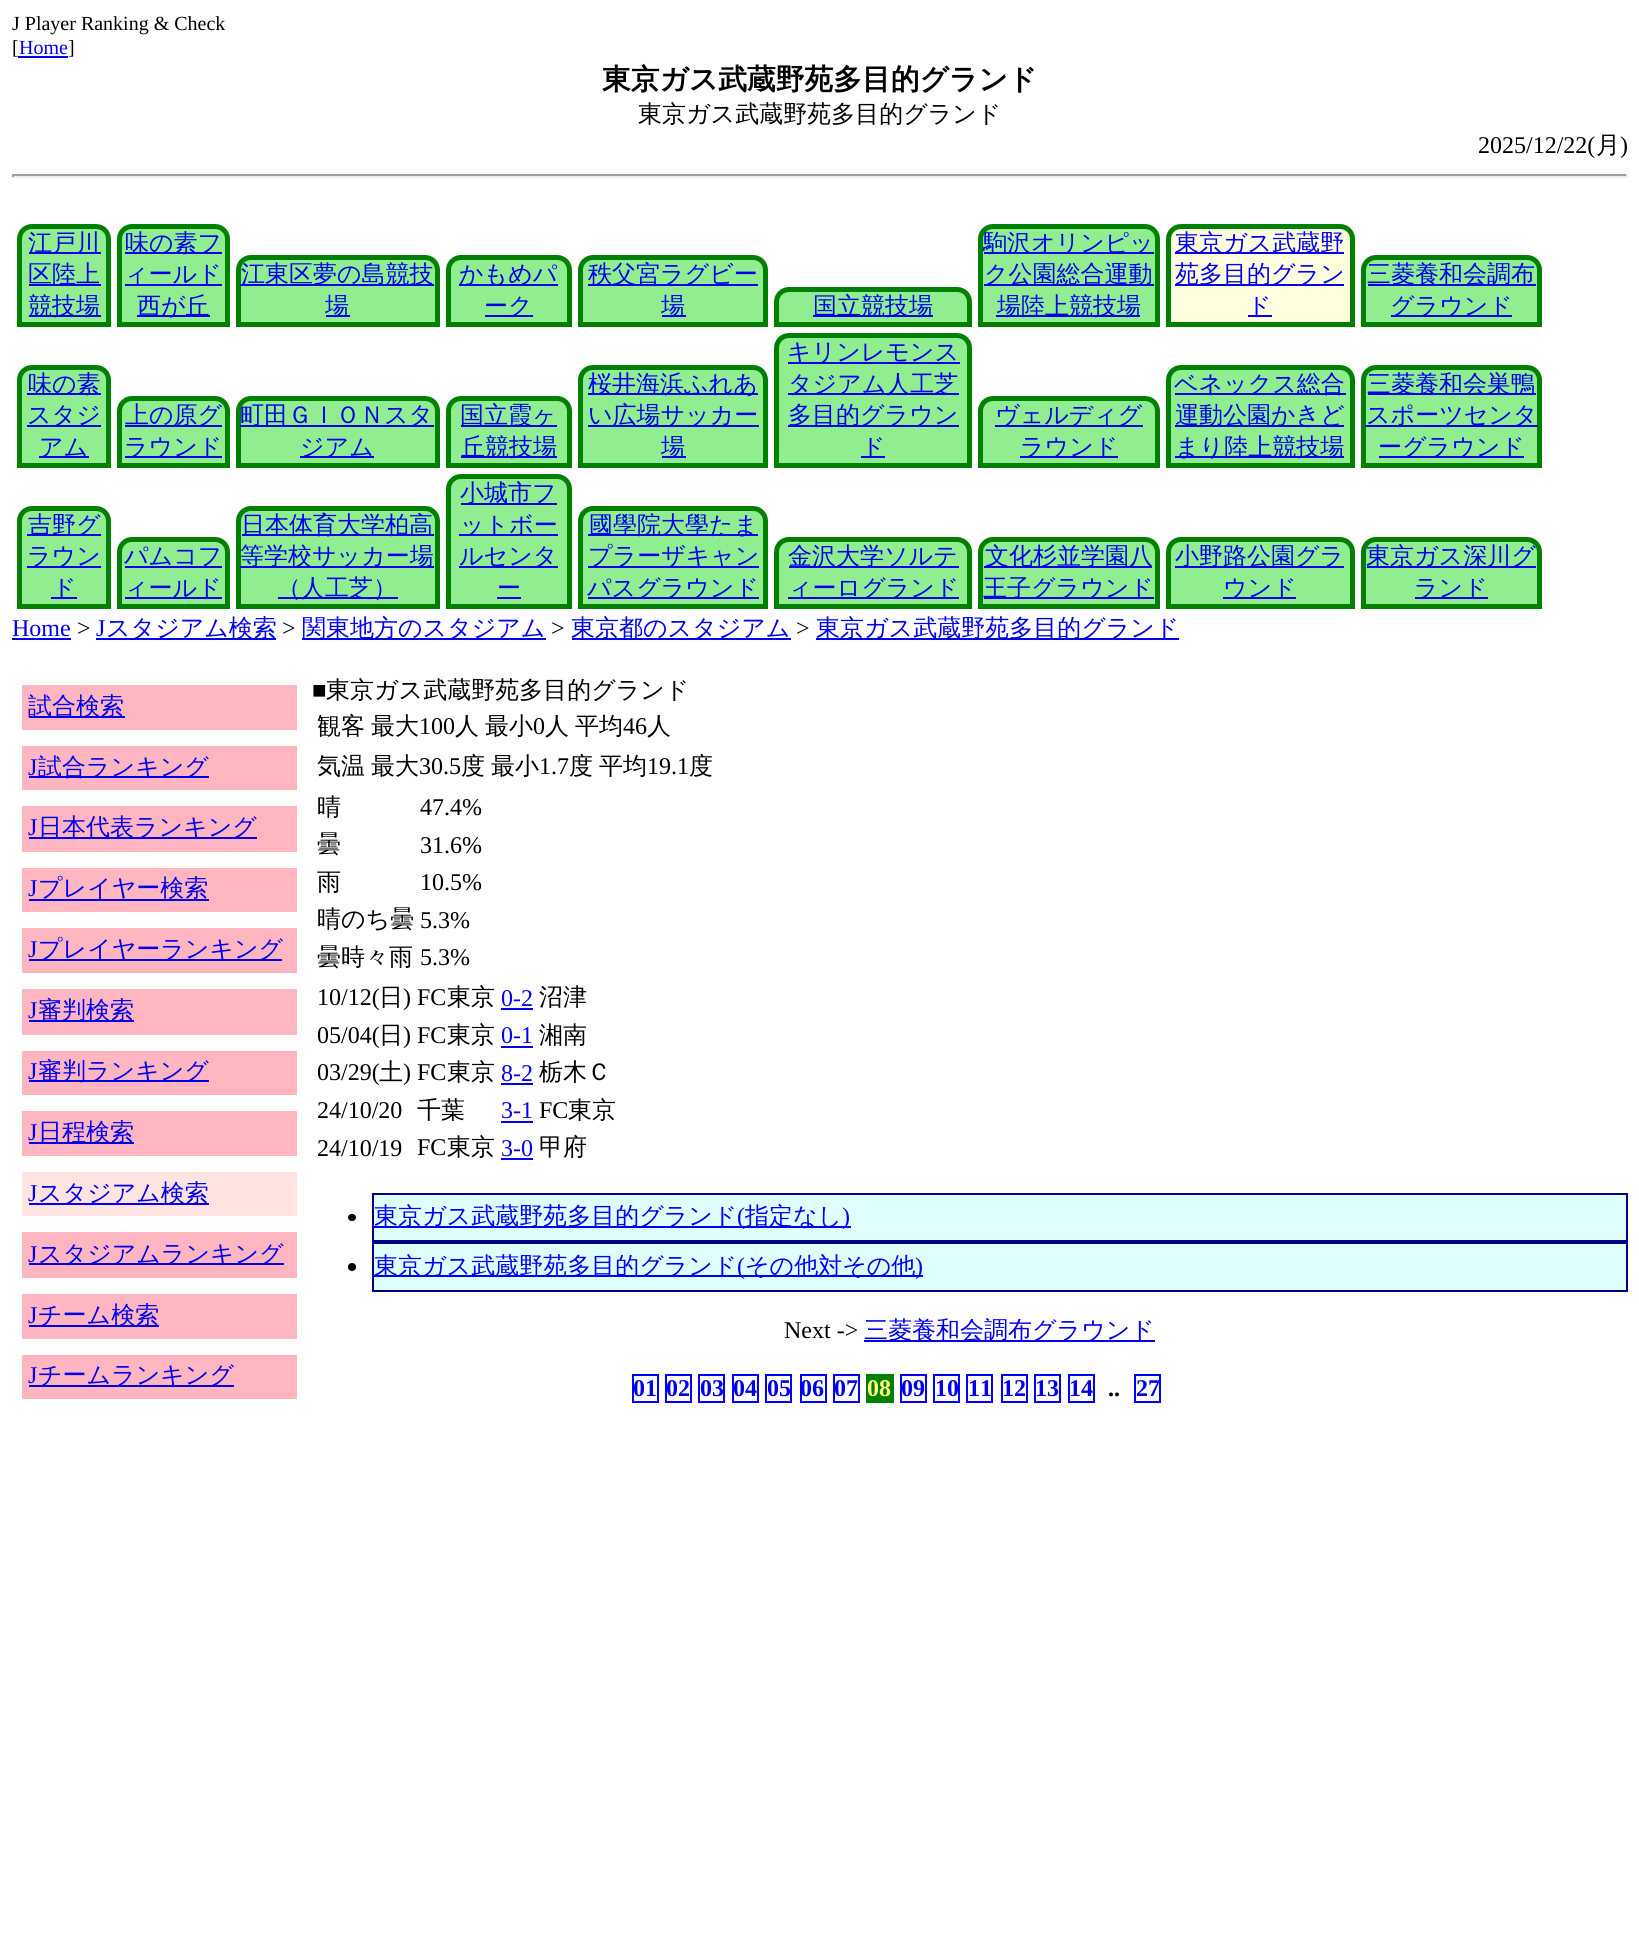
import math
import cairo


def round_path(ctx, x, y, w, h, r):
	ctx.new_sub_path()
	for i, (u, v) in enumerate([(x + w - r, y + h - r), (x + r, y + h - r), (x + r, y + r), (x + w - r, y + r)]):
		ctx.arc(u, v, r, i * math.pi / 2, (i + 1) * math.pi / 2)
	ctx.close_path()

def draw(ctx):
	ctx.set_source_rgb(1, 1, 1)
	ctx.paint()
	ctx.select_font_face('Liberation Serif')
	ctx.set_font_size(20)
	ctx.set_source_rgb(0, 0, 0)
	ctx.move_to(12, 30)
	ctx.show_text('J Player Ranking & Check')
	ctx.move_to(12, 54)
	ctx.show_text('[')
	ctx.set_source_rgb(0, 0, 0.933)
	ctx.rectangle(18, 56, 50, 2)
	ctx.fill()
	ctx.move_to(19, 54)
	ctx.show_text('Home')
	ctx.set_source_rgb(0, 0, 0)
	ctx.move_to(68, 54)
	ctx.show_text(']')
	ctx.select_font_face('WenQuanYi Zen Hei', cairo.FONT_SLANT_NORMAL, cairo.FONT_WEIGHT_BOLD)
	ctx.set_font_size(28.75)
	ctx.move_to(602, 89)
	ctx.show_text('東京ガス武蔵野苑多目的グランド')
	ctx.select_font_face('WenQuanYi Zen Hei Medium')
	ctx.set_font_size(24)
	ctx.move_to(638, 122)
	ctx.show_text('東京ガス武蔵野苑多目的グランド')
	ctx.select_font_face('Liberation Serif')
	ctx.move_to(1478, 153)
	ctx.show_text('2025/12/22(')
	ctx.select_font_face('WenQuanYi Zen Hei Medium')
	ctx.move_to(1596, 153)
	ctx.show_text('月')
	ctx.select_font_face('Liberation Serif')
	ctx.move_to(1620, 153)
	ctx.show_text(')')
	ctx.set_source_rgb(0.624, 0.624, 0.624)
	ctx.rectangle(12, 174, 1616, 2)
	ctx.fill()
	ctx.set_source_rgb(0.933, 0.933, 0.933)
	ctx.rectangle(1626, 174, 2, 3)
	ctx.rectangle(12, 176, 1616, 2)
	ctx.fill()
	ctx.set_source_rgb(0.624, 0.624, 0.624)
	ctx.rectangle(12, 174, 2, 3)
	ctx.fill()
	ctx.set_source_rgb(0.565, 0.933, 0.565)
	ctx.new_path()
	ctx.move_to(32, 226.5)
	ctx.line_to(96, 226.5)
	ctx.curve_to(103, 226.5, 108.5, 232, 108.5, 239)
	ctx.line_to(108.5, 324.5)
	ctx.line_to(19.5, 324.5)
	ctx.line_to(19.5, 239)
	ctx.curve_to(19.5, 232, 25, 226.5, 32, 226.5)
	ctx.close_path()
	ctx.fill_preserve()
	ctx.set_source_rgb(0, 0.502, 0)
	ctx.set_line_width(5)
	ctx.stroke()
	ctx.set_source_rgb(0, 0, 0.933)
	ctx.rectangle(29, 252, 72, 2)
	ctx.fill()
	ctx.select_font_face('WenQuanYi Zen Hei Medium')
	ctx.move_to(28, 251)
	ctx.show_text('江戸川')
	ctx.rectangle(29, 284, 72, 2)
	ctx.fill()
	ctx.move_to(28, 282)
	ctx.show_text('区陸上')
	ctx.rectangle(29, 315, 72, 2)
	ctx.fill()
	ctx.move_to(28, 314)
	ctx.show_text('競技場')
	ctx.set_source_rgb(0.565, 0.933, 0.565)
	ctx.new_path()
	ctx.move_to(132, 226.5)
	ctx.line_to(215, 226.5)
	ctx.curve_to(222, 226.5, 227.5, 232, 227.5, 239)
	ctx.line_to(227.5, 324.5)
	ctx.line_to(119.5, 324.5)
	ctx.line_to(119.5, 239)
	ctx.curve_to(119.5, 232, 125, 226.5, 132, 226.5)
	ctx.close_path()
	ctx.fill_preserve()
	ctx.set_source_rgb(0, 0.502, 0)
	ctx.stroke()
	ctx.set_source_rgb(0, 0, 0.933)
	ctx.rectangle(125, 252, 97, 2)
	ctx.fill()
	ctx.move_to(125, 251)
	ctx.show_text('味の素フ')
	ctx.rectangle(125, 284, 97, 2)
	ctx.fill()
	ctx.move_to(124, 282)
	ctx.show_text('ィールド')
	ctx.rectangle(137, 315, 73, 2)
	ctx.fill()
	ctx.move_to(137, 314)
	ctx.show_text('西が丘')
	ctx.set_source_rgb(0.565, 0.933, 0.565)
	ctx.new_path()
	ctx.move_to(251, 257.5)
	ctx.line_to(425, 257.5)
	ctx.curve_to(432, 257.5, 437.5, 263, 437.5, 270)
	ctx.line_to(437.5, 324.5)
	ctx.line_to(238.5, 324.5)
	ctx.line_to(238.5, 270)
	ctx.curve_to(238.5, 263, 244, 257.5, 251, 257.5)
	ctx.close_path()
	ctx.fill_preserve()
	ctx.set_source_rgb(0, 0.502, 0)
	ctx.stroke()
	ctx.set_source_rgb(0, 0, 0.933)
	ctx.rectangle(240, 284, 194, 2)
	ctx.fill()
	ctx.move_to(241, 282)
	ctx.show_text('江東区夢の島競技')
	ctx.rectangle(326, 315, 24, 2)
	ctx.fill()
	ctx.move_to(325, 314)
	ctx.show_text('場')
	ctx.set_source_rgb(0.565, 0.933, 0.565)
	ctx.new_path()
	ctx.move_to(461, 257.5)
	ctx.line_to(557, 257.5)
	ctx.curve_to(564, 257.5, 569.5, 263, 569.5, 270)
	ctx.line_to(569.5, 324.5)
	ctx.line_to(448.5, 324.5)
	ctx.line_to(448.5, 270)
	ctx.curve_to(448.5, 263, 454, 257.5, 461, 257.5)
	ctx.close_path()
	ctx.fill_preserve()
	ctx.set_source_rgb(0, 0.502, 0)
	ctx.stroke()
	ctx.set_source_rgb(0, 0, 0.933)
	ctx.rectangle(459, 284, 99, 2)
	ctx.fill()
	ctx.move_to(459, 282)
	ctx.show_text('かもめパ')
	ctx.rectangle(485, 315, 48, 2)
	ctx.fill()
	ctx.move_to(484, 314)
	ctx.show_text('ーク')
	ctx.set_source_rgb(0.565, 0.933, 0.565)
	ctx.new_path()
	ctx.move_to(593, 257.5)
	ctx.line_to(753, 257.5)
	ctx.curve_to(760, 257.5, 765.5, 263, 765.5, 270)
	ctx.line_to(765.5, 324.5)
	ctx.line_to(580.5, 324.5)
	ctx.line_to(580.5, 270)
	ctx.curve_to(580.5, 263, 586, 257.5, 593, 257.5)
	ctx.close_path()
	ctx.fill_preserve()
	ctx.set_source_rgb(0, 0.502, 0)
	ctx.stroke()
	ctx.set_source_rgb(0, 0, 0.933)
	ctx.rectangle(588, 284, 170, 2)
	ctx.fill()
	ctx.move_to(588, 282)
	ctx.show_text('秩父宮ラグビー')
	ctx.rectangle(662, 315, 24, 2)
	ctx.fill()
	ctx.move_to(661, 314)
	ctx.show_text('場')
	ctx.set_source_rgb(0.565, 0.933, 0.565)
	ctx.new_path()
	ctx.move_to(789, 289.5)
	ctx.line_to(957, 289.5)
	ctx.curve_to(964, 289.5, 969.5, 295, 969.5, 302)
	ctx.line_to(969.5, 324.5)
	ctx.line_to(776.5, 324.5)
	ctx.line_to(776.5, 302)
	ctx.curve_to(776.5, 295, 782, 289.5, 789, 289.5)
	ctx.close_path()
	ctx.fill_preserve()
	ctx.set_source_rgb(0, 0.502, 0)
	ctx.stroke()
	ctx.set_source_rgb(0, 0, 0.933)
	ctx.rectangle(813, 315, 120, 2)
	ctx.fill()
	ctx.move_to(813, 314)
	ctx.show_text('国立競技場')
	ctx.set_source_rgb(0.565, 0.933, 0.565)
	ctx.new_path()
	ctx.move_to(993, 226.5)
	ctx.line_to(1145, 226.5)
	ctx.curve_to(1152, 226.5, 1157.5, 232, 1157.5, 239)
	ctx.line_to(1157.5, 324.5)
	ctx.line_to(980.5, 324.5)
	ctx.line_to(980.5, 239)
	ctx.curve_to(980.5, 232, 986, 226.5, 993, 226.5)
	ctx.close_path()
	ctx.fill_preserve()
	ctx.set_source_rgb(0, 0.502, 0)
	ctx.stroke()
	ctx.set_source_rgb(0, 0, 0.933)
	ctx.rectangle(984, 252, 170, 2)
	ctx.fill()
	ctx.move_to(983, 251)
	ctx.show_text('駒沢オリンピッ')
	ctx.rectangle(984, 284, 170, 2)
	ctx.fill()
	ctx.move_to(984, 282)
	ctx.show_text('ク公園総合運動')
	ctx.rectangle(996, 315, 144, 2)
	ctx.fill()
	ctx.move_to(997, 314)
	ctx.show_text('場陸上競技場')
	ctx.set_source_rgb(1, 1, 0.878)
	ctx.new_path()
	ctx.move_to(1181, 226.5)
	ctx.line_to(1340, 226.5)
	ctx.curve_to(1347, 226.5, 1352.5, 232, 1352.5, 239)
	ctx.line_to(1352.5, 324.5)
	ctx.line_to(1168.5, 324.5)
	ctx.line_to(1168.5, 239)
	ctx.curve_to(1168.5, 232, 1174, 226.5, 1181, 226.5)
	ctx.close_path()
	ctx.fill_preserve()
	ctx.set_source_rgb(0, 0.502, 0)
	ctx.stroke()
	ctx.set_source_rgb(0, 0, 0.933)
	ctx.rectangle(1175, 252, 169, 2)
	ctx.fill()
	ctx.move_to(1175, 251)
	ctx.show_text('東京ガス武蔵野')
	ctx.rectangle(1175, 284, 169, 2)
	ctx.fill()
	ctx.move_to(1175, 282)
	ctx.show_text('苑多目的グラン')
	ctx.rectangle(1248, 315, 24, 2)
	ctx.fill()
	ctx.move_to(1247, 314)
	ctx.show_text('ド')
	ctx.set_source_rgb(0.565, 0.933, 0.565)
	ctx.new_path()
	ctx.move_to(1376, 257.5)
	ctx.line_to(1527, 257.5)
	ctx.curve_to(1534, 257.5, 1539.5, 263, 1539.5, 270)
	ctx.line_to(1539.5, 324.5)
	ctx.line_to(1363.5, 324.5)
	ctx.line_to(1363.5, 270)
	ctx.curve_to(1363.5, 263, 1369, 257.5, 1376, 257.5)
	ctx.close_path()
	ctx.fill_preserve()
	ctx.set_source_rgb(0, 0.502, 0)
	ctx.stroke()
	ctx.set_source_rgb(0, 0, 0.933)
	ctx.rectangle(1368, 284, 168, 2)
	ctx.fill()
	ctx.move_to(1367, 282)
	ctx.show_text('三菱養和会調布')
	ctx.rectangle(1391, 315, 121, 2)
	ctx.fill()
	ctx.move_to(1390, 314)
	ctx.show_text('グラウンド')
	ctx.set_source_rgb(0.565, 0.933, 0.565)
	ctx.new_path()
	ctx.move_to(32, 367.5)
	ctx.line_to(96, 367.5)
	ctx.curve_to(103, 367.5, 108.5, 373, 108.5, 380)
	ctx.line_to(108.5, 465.5)
	ctx.line_to(19.5, 465.5)
	ctx.line_to(19.5, 380)
	ctx.curve_to(19.5, 373, 25, 367.5, 32, 367.5)
	ctx.close_path()
	ctx.fill_preserve()
	ctx.set_source_rgb(0, 0.502, 0)
	ctx.stroke()
	ctx.set_source_rgb(0, 0, 0.933)
	ctx.rectangle(27, 393, 74, 2)
	ctx.fill()
	ctx.move_to(28, 392)
	ctx.show_text('味の素')
	ctx.rectangle(27, 425, 74, 2)
	ctx.fill()
	ctx.move_to(27, 423)
	ctx.show_text('スタジ')
	ctx.rectangle(39, 456, 50, 2)
	ctx.fill()
	ctx.move_to(39, 455)
	ctx.show_text('アム')
	ctx.set_source_rgb(0.565, 0.933, 0.565)
	ctx.new_path()
	ctx.move_to(132, 398.5)
	ctx.line_to(215, 398.5)
	ctx.curve_to(222, 398.5, 227.5, 404, 227.5, 411)
	ctx.line_to(227.5, 465.5)
	ctx.line_to(119.5, 465.5)
	ctx.line_to(119.5, 411)
	ctx.curve_to(119.5, 404, 125, 398.5, 132, 398.5)
	ctx.close_path()
	ctx.fill_preserve()
	ctx.set_source_rgb(0, 0.502, 0)
	ctx.stroke()
	ctx.set_source_rgb(0, 0, 0.933)
	ctx.rectangle(125, 425, 97, 2)
	ctx.fill()
	ctx.move_to(125, 423)
	ctx.show_text('上の原グ')
	ctx.rectangle(125, 456, 97, 2)
	ctx.fill()
	ctx.move_to(124, 455)
	ctx.show_text('ラウンド')
	ctx.set_source_rgb(0.565, 0.933, 0.565)
	ctx.new_path()
	ctx.move_to(251, 398.5)
	ctx.line_to(425, 398.5)
	ctx.curve_to(432, 398.5, 437.5, 404, 437.5, 411)
	ctx.line_to(437.5, 465.5)
	ctx.line_to(238.5, 465.5)
	ctx.line_to(238.5, 411)
	ctx.curve_to(238.5, 404, 244, 398.5, 251, 398.5)
	ctx.close_path()
	ctx.fill_preserve()
	ctx.set_source_rgb(0, 0.502, 0)
	ctx.stroke()
	ctx.set_source_rgb(0, 0, 0.933)
	ctx.rectangle(240, 425, 194, 2)
	ctx.fill()
	ctx.move_to(240, 423)
	ctx.show_text('町田ＧＩＯＮスタ')
	ctx.rectangle(300, 456, 74, 2)
	ctx.fill()
	ctx.move_to(300, 455)
	ctx.show_text('ジアム')
	ctx.set_source_rgb(0.565, 0.933, 0.565)
	ctx.new_path()
	ctx.move_to(461, 398.5)
	ctx.line_to(557, 398.5)
	ctx.curve_to(564, 398.5, 569.5, 404, 569.5, 411)
	ctx.line_to(569.5, 465.5)
	ctx.line_to(448.5, 465.5)
	ctx.line_to(448.5, 411)
	ctx.curve_to(448.5, 404, 454, 398.5, 461, 398.5)
	ctx.close_path()
	ctx.fill_preserve()
	ctx.set_source_rgb(0, 0.502, 0)
	ctx.stroke()
	ctx.set_source_rgb(0, 0, 0.933)
	ctx.rectangle(461, 425, 96, 2)
	ctx.fill()
	ctx.move_to(460, 423)
	ctx.show_text('国立霞ヶ')
	ctx.rectangle(461, 456, 96, 2)
	ctx.fill()
	ctx.move_to(461, 455)
	ctx.show_text('丘競技場')
	ctx.set_source_rgb(0.565, 0.933, 0.565)
	ctx.new_path()
	ctx.move_to(593, 367.5)
	ctx.line_to(753, 367.5)
	ctx.curve_to(760, 367.5, 765.5, 373, 765.5, 380)
	ctx.line_to(765.5, 465.5)
	ctx.line_to(580.5, 465.5)
	ctx.line_to(580.5, 380)
	ctx.curve_to(580.5, 373, 586, 367.5, 593, 367.5)
	ctx.close_path()
	ctx.fill_preserve()
	ctx.set_source_rgb(0, 0.502, 0)
	ctx.stroke()
	ctx.set_source_rgb(0, 0, 0.933)
	ctx.rectangle(588, 393, 170, 2)
	ctx.fill()
	ctx.move_to(588, 392)
	ctx.show_text('桜井海浜ふれあ')
	ctx.rectangle(588, 425, 171, 2)
	ctx.fill()
	ctx.move_to(588, 423)
	ctx.show_text('い広場サッカー')
	ctx.rectangle(662, 456, 24, 2)
	ctx.fill()
	ctx.move_to(661, 455)
	ctx.show_text('場')
	ctx.set_source_rgb(0.565, 0.933, 0.565)
	ctx.new_path()
	ctx.move_to(789, 335.5)
	ctx.line_to(957, 335.5)
	ctx.curve_to(964, 335.5, 969.5, 341, 969.5, 348)
	ctx.line_to(969.5, 465.5)
	ctx.line_to(776.5, 465.5)
	ctx.line_to(776.5, 348)
	ctx.curve_to(776.5, 341, 782, 335.5, 789, 335.5)
	ctx.close_path()
	ctx.fill_preserve()
	ctx.set_source_rgb(0, 0.502, 0)
	ctx.stroke()
	ctx.set_source_rgb(0, 0, 0.933)
	ctx.rectangle(788, 362, 172, 2)
	ctx.fill()
	ctx.move_to(787, 360)
	ctx.show_text('キリンレモンス')
	ctx.rectangle(788, 393, 171, 2)
	ctx.fill()
	ctx.move_to(788, 392)
	ctx.show_text('タジアム人工芝')
	ctx.rectangle(788, 425, 171, 2)
	ctx.fill()
	ctx.move_to(788, 423)
	ctx.show_text('多目的グラウン')
	ctx.rectangle(861, 456, 24, 2)
	ctx.fill()
	ctx.move_to(861, 455)
	ctx.show_text('ド')
	ctx.set_source_rgb(0.565, 0.933, 0.565)
	ctx.new_path()
	ctx.move_to(993, 398.5)
	ctx.line_to(1145, 398.5)
	ctx.curve_to(1152, 398.5, 1157.5, 404, 1157.5, 411)
	ctx.line_to(1157.5, 465.5)
	ctx.line_to(980.5, 465.5)
	ctx.line_to(980.5, 411)
	ctx.curve_to(980.5, 404, 986, 398.5, 993, 398.5)
	ctx.close_path()
	ctx.fill_preserve()
	ctx.set_source_rgb(0, 0.502, 0)
	ctx.stroke()
	ctx.set_source_rgb(0, 0, 0.933)
	ctx.rectangle(995, 425, 148, 2)
	ctx.fill()
	ctx.move_to(995, 423)
	ctx.show_text('ヴェルディグ')
	ctx.rectangle(1020, 456, 98, 2)
	ctx.fill()
	ctx.move_to(1020, 455)
	ctx.show_text('ラウンド')
	ctx.set_source_rgb(0.565, 0.933, 0.565)
	ctx.new_path()
	ctx.move_to(1181, 367.5)
	ctx.line_to(1340, 367.5)
	ctx.curve_to(1347, 367.5, 1352.5, 373, 1352.5, 380)
	ctx.line_to(1352.5, 465.5)
	ctx.line_to(1168.5, 465.5)
	ctx.line_to(1168.5, 380)
	ctx.curve_to(1168.5, 373, 1174, 367.5, 1181, 367.5)
	ctx.close_path()
	ctx.fill_preserve()
	ctx.set_source_rgb(0, 0.502, 0)
	ctx.stroke()
	ctx.set_source_rgb(0, 0, 0.933)
	ctx.rectangle(1175, 393, 171, 2)
	ctx.fill()
	ctx.move_to(1174, 392)
	ctx.show_text('ベネックス総合')
	ctx.rectangle(1175, 425, 169, 2)
	ctx.fill()
	ctx.move_to(1175, 423)
	ctx.show_text('運動公園かきど')
	ctx.rectangle(1175, 456, 169, 2)
	ctx.fill()
	ctx.move_to(1175, 455)
	ctx.show_text('まり陸上競技場')
	ctx.set_source_rgb(0.565, 0.933, 0.565)
	ctx.new_path()
	ctx.move_to(1376, 367.5)
	ctx.line_to(1527, 367.5)
	ctx.curve_to(1534, 367.5, 1539.5, 373, 1539.5, 380)
	ctx.line_to(1539.5, 465.5)
	ctx.line_to(1363.5, 465.5)
	ctx.line_to(1363.5, 380)
	ctx.curve_to(1363.5, 373, 1369, 367.5, 1376, 367.5)
	ctx.close_path()
	ctx.fill_preserve()
	ctx.set_source_rgb(0, 0.502, 0)
	ctx.stroke()
	ctx.set_source_rgb(0, 0, 0.933)
	ctx.rectangle(1368, 393, 168, 2)
	ctx.fill()
	ctx.move_to(1367, 392)
	ctx.show_text('三菱養和会巣鴨')
	ctx.rectangle(1365, 425, 173, 2)
	ctx.fill()
	ctx.move_to(1366, 423)
	ctx.show_text('スポーツセンタ')
	ctx.rectangle(1379, 456, 145, 2)
	ctx.fill()
	ctx.move_to(1378, 455)
	ctx.show_text('ーグラウンド')
	ctx.set_source_rgb(0.565, 0.933, 0.565)
	ctx.new_path()
	ctx.move_to(32, 508.5)
	ctx.line_to(96, 508.5)
	ctx.curve_to(103, 508.5, 108.5, 514, 108.5, 521)
	ctx.line_to(108.5, 606.5)
	ctx.line_to(19.5, 606.5)
	ctx.line_to(19.5, 521)
	ctx.curve_to(19.5, 514, 25, 508.5, 32, 508.5)
	ctx.close_path()
	ctx.fill_preserve()
	ctx.set_source_rgb(0, 0.502, 0)
	ctx.stroke()
	ctx.set_source_rgb(0, 0, 0.933)
	ctx.rectangle(27, 534, 74, 2)
	ctx.fill()
	ctx.move_to(28, 533)
	ctx.show_text('吉野グ')
	ctx.rectangle(27, 566, 74, 2)
	ctx.fill()
	ctx.move_to(27, 564)
	ctx.show_text('ラウン')
	ctx.rectangle(51, 597, 26, 2)
	ctx.fill()
	ctx.move_to(52, 596)
	ctx.show_text('ド')
	ctx.set_source_rgb(0.565, 0.933, 0.565)
	ctx.new_path()
	ctx.move_to(132, 539.5)
	ctx.line_to(215, 539.5)
	ctx.curve_to(222, 539.5, 227.5, 545, 227.5, 552)
	ctx.line_to(227.5, 606.5)
	ctx.line_to(119.5, 606.5)
	ctx.line_to(119.5, 552)
	ctx.curve_to(119.5, 545, 125, 539.5, 132, 539.5)
	ctx.close_path()
	ctx.fill_preserve()
	ctx.set_source_rgb(0, 0.502, 0)
	ctx.stroke()
	ctx.set_source_rgb(0, 0, 0.933)
	ctx.rectangle(125, 566, 97, 2)
	ctx.fill()
	ctx.move_to(124, 564)
	ctx.show_text('パムコフ')
	ctx.rectangle(125, 597, 97, 2)
	ctx.fill()
	ctx.move_to(124, 596)
	ctx.show_text('ィールド')
	ctx.set_source_rgb(0.565, 0.933, 0.565)
	ctx.new_path()
	ctx.move_to(251, 508.5)
	ctx.line_to(425, 508.5)
	ctx.curve_to(432, 508.5, 437.5, 514, 437.5, 521)
	ctx.line_to(437.5, 606.5)
	ctx.line_to(238.5, 606.5)
	ctx.line_to(238.5, 521)
	ctx.curve_to(238.5, 514, 244, 508.5, 251, 508.5)
	ctx.close_path()
	ctx.fill_preserve()
	ctx.set_source_rgb(0, 0.502, 0)
	ctx.stroke()
	ctx.set_source_rgb(0, 0, 0.933)
	ctx.rectangle(242, 534, 192, 2)
	ctx.fill()
	ctx.move_to(241, 533)
	ctx.show_text('日本体育大学柏高')
	ctx.rectangle(240, 566, 194, 2)
	ctx.fill()
	ctx.move_to(240, 564)
	ctx.show_text('等学校サッカー場')
	ctx.rectangle(278, 597, 120, 2)
	ctx.fill()
	ctx.move_to(277, 596)
	ctx.show_text('（人工芝）')
	ctx.set_source_rgb(0.565, 0.933, 0.565)
	ctx.new_path()
	ctx.move_to(461, 476.5)
	ctx.line_to(557, 476.5)
	ctx.curve_to(564, 476.5, 569.5, 482, 569.5, 489)
	ctx.line_to(569.5, 606.5)
	ctx.line_to(448.5, 606.5)
	ctx.line_to(448.5, 489)
	ctx.curve_to(448.5, 482, 454, 476.5, 461, 476.5)
	ctx.close_path()
	ctx.fill_preserve()
	ctx.set_source_rgb(0, 0.502, 0)
	ctx.stroke()
	ctx.set_source_rgb(0, 0, 0.933)
	ctx.rectangle(461, 503, 96, 2)
	ctx.fill()
	ctx.move_to(460, 501)
	ctx.show_text('小城市フ')
	ctx.rectangle(459, 534, 99, 2)
	ctx.fill()
	ctx.move_to(460, 533)
	ctx.show_text('ットボー')
	ctx.rectangle(459, 566, 99, 2)
	ctx.fill()
	ctx.move_to(459, 564)
	ctx.show_text('ルセンタ')
	ctx.move_to(497, 596)
	ctx.show_text('ー')
	ctx.rectangle(497, 597, 24, 2)
	ctx.fill()
	ctx.set_source_rgb(0.565, 0.933, 0.565)
	ctx.new_path()
	ctx.move_to(593, 508.5)
	ctx.line_to(753, 508.5)
	ctx.curve_to(760, 508.5, 765.5, 514, 765.5, 521)
	ctx.line_to(765.5, 606.5)
	ctx.line_to(580.5, 606.5)
	ctx.line_to(580.5, 521)
	ctx.curve_to(580.5, 514, 586, 508.5, 593, 508.5)
	ctx.close_path()
	ctx.fill_preserve()
	ctx.set_source_rgb(0, 0.502, 0)
	ctx.stroke()
	ctx.set_source_rgb(0, 0, 0.933)
	ctx.rectangle(588, 534, 170, 2)
	ctx.fill()
	ctx.move_to(589, 533)
	ctx.show_text('國學院大學たま')
	ctx.rectangle(588, 566, 171, 2)
	ctx.fill()
	ctx.move_to(588, 564)
	ctx.show_text('プラーザキャン')
	ctx.rectangle(588, 597, 171, 2)
	ctx.fill()
	ctx.move_to(587, 596)
	ctx.show_text('パスグラウンド')
	ctx.set_source_rgb(0.565, 0.933, 0.565)
	ctx.new_path()
	ctx.move_to(789, 539.5)
	ctx.line_to(957, 539.5)
	ctx.curve_to(964, 539.5, 969.5, 545, 969.5, 552)
	ctx.line_to(969.5, 606.5)
	ctx.line_to(776.5, 606.5)
	ctx.line_to(776.5, 552)
	ctx.curve_to(776.5, 545, 782, 539.5, 789, 539.5)
	ctx.close_path()
	ctx.fill_preserve()
	ctx.set_source_rgb(0, 0.502, 0)
	ctx.stroke()
	ctx.set_source_rgb(0, 0, 0.933)
	ctx.rectangle(789, 566, 170, 2)
	ctx.fill()
	ctx.move_to(788, 564)
	ctx.show_text('金沢大学ソルテ')
	ctx.rectangle(788, 597, 171, 2)
	ctx.fill()
	ctx.move_to(788, 596)
	ctx.show_text('ィーログランド')
	ctx.set_source_rgb(0.565, 0.933, 0.565)
	ctx.new_path()
	ctx.move_to(993, 539.5)
	ctx.line_to(1145, 539.5)
	ctx.curve_to(1152, 539.5, 1157.5, 545, 1157.5, 552)
	ctx.line_to(1157.5, 606.5)
	ctx.line_to(980.5, 606.5)
	ctx.line_to(980.5, 552)
	ctx.curve_to(980.5, 545, 986, 539.5, 993, 539.5)
	ctx.close_path()
	ctx.fill_preserve()
	ctx.set_source_rgb(0, 0.502, 0)
	ctx.stroke()
	ctx.set_source_rgb(0, 0, 0.933)
	ctx.rectangle(984, 566, 168, 2)
	ctx.fill()
	ctx.move_to(985, 564)
	ctx.show_text('文化杉並学園八')
	ctx.rectangle(984, 597, 170, 2)
	ctx.fill()
	ctx.move_to(983, 596)
	ctx.show_text('王子グラウンド')
	ctx.set_source_rgb(0.565, 0.933, 0.565)
	ctx.new_path()
	ctx.move_to(1181, 539.5)
	ctx.line_to(1340, 539.5)
	ctx.curve_to(1347, 539.5, 1352.5, 545, 1352.5, 552)
	ctx.line_to(1352.5, 606.5)
	ctx.line_to(1168.5, 606.5)
	ctx.line_to(1168.5, 552)
	ctx.curve_to(1168.5, 545, 1174, 539.5, 1181, 539.5)
	ctx.close_path()
	ctx.fill_preserve()
	ctx.set_source_rgb(0, 0.502, 0)
	ctx.stroke()
	ctx.set_source_rgb(0, 0, 0.933)
	ctx.rectangle(1175, 566, 169, 2)
	ctx.fill()
	ctx.move_to(1175, 564)
	ctx.show_text('小野路公園グラ')
	ctx.rectangle(1223, 597, 73, 2)
	ctx.fill()
	ctx.move_to(1223, 596)
	ctx.show_text('ウンド')
	ctx.set_source_rgb(0.565, 0.933, 0.565)
	ctx.new_path()
	ctx.move_to(1376, 539.5)
	ctx.line_to(1527, 539.5)
	ctx.curve_to(1534, 539.5, 1539.5, 545, 1539.5, 552)
	ctx.line_to(1539.5, 606.5)
	ctx.line_to(1363.5, 606.5)
	ctx.line_to(1363.5, 552)
	ctx.curve_to(1363.5, 545, 1369, 539.5, 1376, 539.5)
	ctx.close_path()
	ctx.fill_preserve()
	ctx.set_source_rgb(0, 0.502, 0)
	ctx.stroke()
	ctx.set_source_rgb(0, 0, 0.933)
	ctx.rectangle(1367, 566, 169, 2)
	ctx.fill()
	ctx.move_to(1366, 564)
	ctx.show_text('東京ガス深川グ')
	ctx.rectangle(1415, 597, 73, 2)
	ctx.fill()
	ctx.move_to(1414, 596)
	ctx.show_text('ランド')
	ctx.select_font_face('Liberation Serif')
	ctx.move_to(12, 636)
	ctx.show_text('Home')
	ctx.rectangle(12, 638, 59, 2)
	ctx.fill()
	ctx.set_source_rgb(0, 0, 0)
	ctx.move_to(77, 636)
	ctx.show_text('>')
	ctx.set_source_rgb(0, 0, 0.933)
	ctx.move_to(96, 636)
	ctx.show_text('J')
	ctx.rectangle(96, 638, 180, 2)
	ctx.fill()
	ctx.select_font_face('WenQuanYi Zen Hei Medium')
	ctx.move_to(106, 636)
	ctx.show_text('スタジアム検索')
	ctx.select_font_face('Liberation Serif')
	ctx.set_source_rgb(0, 0, 0)
	ctx.move_to(282, 636)
	ctx.show_text('>')
	ctx.set_source_rgb(0, 0, 0.933)
	ctx.rectangle(302, 638, 244, 2)
	ctx.fill()
	ctx.select_font_face('WenQuanYi Zen Hei Medium')
	ctx.move_to(302, 636)
	ctx.show_text('関東地方のスタジアム')
	ctx.select_font_face('Liberation Serif')
	ctx.set_source_rgb(0, 0, 0)
	ctx.move_to(551, 636)
	ctx.show_text('>')
	ctx.set_source_rgb(0, 0, 0.933)
	ctx.rectangle(572, 638, 219, 2)
	ctx.fill()
	ctx.select_font_face('WenQuanYi Zen Hei Medium')
	ctx.move_to(571, 636)
	ctx.show_text('東京都のスタジアム')
	ctx.select_font_face('Liberation Serif')
	ctx.set_source_rgb(0, 0, 0)
	ctx.move_to(796, 636)
	ctx.show_text('>')
	ctx.set_source_rgb(0, 0, 0.933)
	ctx.rectangle(816, 638, 363, 2)
	ctx.fill()
	ctx.select_font_face('WenQuanYi Zen Hei Medium')
	ctx.move_to(816, 636)
	ctx.show_text('東京ガス武蔵野苑多目的グランド')
	ctx.set_source_rgb(1, 0.714, 0.757)
	ctx.rectangle(22, 685, 275, 45)
	ctx.fill()
	ctx.set_source_rgb(0, 0, 0.933)
	ctx.rectangle(29, 716, 96, 2)
	ctx.fill()
	ctx.move_to(28, 714)
	ctx.show_text('試合検索')
	ctx.set_source_rgb(1, 0.714, 0.757)
	ctx.rectangle(22, 746, 275, 44)
	ctx.fill()
	ctx.select_font_face('Liberation Serif')
	ctx.set_source_rgb(0, 0, 0.933)
	ctx.move_to(28, 775)
	ctx.show_text('J')
	ctx.rectangle(29, 776, 180, 2)
	ctx.fill()
	ctx.select_font_face('WenQuanYi Zen Hei Medium')
	ctx.move_to(38, 775)
	ctx.show_text('試合ランキング')
	ctx.set_source_rgb(1, 0.714, 0.757)
	ctx.rectangle(22, 806, 275, 46)
	ctx.fill()
	ctx.select_font_face('Liberation Serif')
	ctx.set_source_rgb(0, 0, 0.933)
	ctx.move_to(28, 835)
	ctx.show_text('J')
	ctx.rectangle(29, 837, 228, 2)
	ctx.fill()
	ctx.select_font_face('WenQuanYi Zen Hei Medium')
	ctx.move_to(38, 835)
	ctx.show_text('日本代表ランキング')
	ctx.set_source_rgb(1, 0.714, 0.757)
	ctx.rectangle(22, 868, 275, 44)
	ctx.fill()
	ctx.select_font_face('Liberation Serif')
	ctx.set_source_rgb(0, 0, 0.933)
	ctx.move_to(28, 896)
	ctx.show_text('J')
	ctx.rectangle(29, 899, 180, 2)
	ctx.fill()
	ctx.select_font_face('WenQuanYi Zen Hei Medium')
	ctx.move_to(38, 896)
	ctx.show_text('プレイヤー検索')
	ctx.set_source_rgb(1, 0.714, 0.757)
	ctx.rectangle(22, 928, 275, 45)
	ctx.fill()
	ctx.select_font_face('Liberation Serif')
	ctx.set_source_rgb(0, 0, 0.933)
	ctx.move_to(28, 957)
	ctx.show_text('J')
	ctx.rectangle(29, 959, 253, 2)
	ctx.fill()
	ctx.select_font_face('WenQuanYi Zen Hei Medium')
	ctx.move_to(38, 957)
	ctx.show_text('プレイヤーランキング')
	ctx.set_source_rgb(1, 0.714, 0.757)
	ctx.rectangle(22, 989, 275, 46)
	ctx.fill()
	ctx.select_font_face('Liberation Serif')
	ctx.set_source_rgb(0, 0, 0.933)
	ctx.move_to(28, 1018)
	ctx.show_text('J')
	ctx.rectangle(29, 1020, 105, 2)
	ctx.fill()
	ctx.select_font_face('WenQuanYi Zen Hei Medium')
	ctx.move_to(38, 1018)
	ctx.show_text('審判検索')
	ctx.set_source_rgb(1, 0.714, 0.757)
	ctx.rectangle(22, 1051, 275, 44)
	ctx.fill()
	ctx.select_font_face('Liberation Serif')
	ctx.set_source_rgb(0, 0, 0.933)
	ctx.move_to(28, 1079)
	ctx.show_text('J')
	ctx.rectangle(29, 1080, 180, 2)
	ctx.fill()
	ctx.select_font_face('WenQuanYi Zen Hei Medium')
	ctx.move_to(38, 1079)
	ctx.show_text('審判ランキング')
	ctx.set_source_rgb(1, 0.714, 0.757)
	ctx.rectangle(22, 1111, 275, 45)
	ctx.fill()
	ctx.select_font_face('Liberation Serif')
	ctx.set_source_rgb(0, 0, 0.933)
	ctx.move_to(28, 1140)
	ctx.show_text('J')
	ctx.rectangle(29, 1142, 105, 2)
	ctx.fill()
	ctx.select_font_face('WenQuanYi Zen Hei Medium')
	ctx.move_to(38, 1140)
	ctx.show_text('日程検索')
	ctx.set_source_rgb(1, 0.894, 0.882)
	ctx.rectangle(22, 1172, 275, 44)
	ctx.fill()
	ctx.select_font_face('Liberation Serif')
	ctx.set_source_rgb(0, 0, 0.933)
	ctx.move_to(28, 1201)
	ctx.show_text('J')
	ctx.rectangle(29, 1203, 180, 2)
	ctx.fill()
	ctx.select_font_face('WenQuanYi Zen Hei Medium')
	ctx.move_to(38, 1201)
	ctx.show_text('スタジアム検索')
	ctx.set_source_rgb(1, 0.714, 0.757)
	ctx.rectangle(22, 1232, 275, 46)
	ctx.fill()
	ctx.select_font_face('Liberation Serif')
	ctx.set_source_rgb(0, 0, 0.933)
	ctx.move_to(28, 1262)
	ctx.show_text('J')
	ctx.rectangle(29, 1263, 255, 2)
	ctx.fill()
	ctx.select_font_face('WenQuanYi Zen Hei Medium')
	ctx.move_to(38, 1262)
	ctx.show_text('スタジアムランキング')
	ctx.set_source_rgb(1, 0.714, 0.757)
	ctx.rectangle(22, 1294, 275, 45)
	ctx.fill()
	ctx.select_font_face('Liberation Serif')
	ctx.set_source_rgb(0, 0, 0.933)
	ctx.move_to(28, 1323)
	ctx.show_text('J')
	ctx.rectangle(29, 1325, 130, 2)
	ctx.fill()
	ctx.select_font_face('WenQuanYi Zen Hei Medium')
	ctx.move_to(38, 1323)
	ctx.show_text('チーム検索')
	ctx.set_source_rgb(1, 0.714, 0.757)
	ctx.rectangle(22, 1355, 275, 44)
	ctx.fill()
	ctx.select_font_face('Liberation Serif')
	ctx.set_source_rgb(0, 0, 0.933)
	ctx.move_to(28, 1383)
	ctx.show_text('J')
	ctx.rectangle(29, 1385, 205, 2)
	ctx.fill()
	ctx.select_font_face('WenQuanYi Zen Hei Medium')
	ctx.move_to(38, 1383)
	ctx.show_text('チームランキング')
	ctx.select_font_face('Liberation Serif')
	ctx.set_source_rgb(0, 0, 0)
	ctx.move_to(312, 698)
	ctx.show_text('■')
	ctx.select_font_face('WenQuanYi Zen Hei Medium')
	for x, y, s in [
		(326, 698, '東京ガス武蔵野苑多目的グランド'),
		(317, 734, '観客'),
		(371, 734, '最大'),
	]:
		ctx.move_to(x, y)
		ctx.show_text(s)
	ctx.select_font_face('Liberation Serif')
	ctx.move_to(419, 734)
	ctx.show_text('100')
	ctx.select_font_face('WenQuanYi Zen Hei Medium')
	ctx.move_to(455, 734)
	ctx.show_text('人')
	ctx.move_to(485, 734)
	ctx.show_text('最小')
	ctx.select_font_face('Liberation Serif')
	ctx.move_to(533, 734)
	ctx.show_text('0')
	ctx.select_font_face('WenQuanYi Zen Hei Medium')
	ctx.move_to(545, 734)
	ctx.show_text('人')
	ctx.move_to(575, 734)
	ctx.show_text('平均')
	ctx.select_font_face('Liberation Serif')
	ctx.move_to(623, 734)
	ctx.show_text('46')
	ctx.select_font_face('WenQuanYi Zen Hei Medium')
	for x, y, s in [
		(647, 734, '人'),
		(317, 774, '気温'),
		(371, 774, '最大'),
	]:
		ctx.move_to(x, y)
		ctx.show_text(s)
	ctx.select_font_face('Liberation Serif')
	ctx.move_to(419, 774)
	ctx.show_text('30.5')
	ctx.select_font_face('WenQuanYi Zen Hei Medium')
	ctx.move_to(461, 774)
	ctx.show_text('度')
	ctx.move_to(491, 774)
	ctx.show_text('最小')
	ctx.select_font_face('Liberation Serif')
	ctx.move_to(539, 774)
	ctx.show_text('1.7')
	ctx.select_font_face('WenQuanYi Zen Hei Medium')
	ctx.move_to(569, 774)
	ctx.show_text('度')
	ctx.move_to(599, 774)
	ctx.show_text('平均')
	ctx.select_font_face('Liberation Serif')
	ctx.move_to(647, 774)
	ctx.show_text('19.1')
	ctx.select_font_face('WenQuanYi Zen Hei Medium')
	ctx.move_to(689, 774)
	ctx.show_text('度')
	ctx.move_to(317, 815)
	ctx.show_text('晴')
	ctx.select_font_face('Liberation Serif')
	ctx.move_to(420, 815)
	ctx.show_text('47.4%')
	ctx.select_font_face('WenQuanYi Zen Hei Medium')
	ctx.move_to(317, 852)
	ctx.show_text('曇')
	ctx.select_font_face('Liberation Serif')
	ctx.move_to(420, 853)
	ctx.show_text('31.6%')
	ctx.select_font_face('WenQuanYi Zen Hei Medium')
	ctx.move_to(317, 890)
	ctx.show_text('雨')
	ctx.select_font_face('Liberation Serif')
	ctx.move_to(420, 890)
	ctx.show_text('10.5%')
	ctx.select_font_face('WenQuanYi Zen Hei Medium')
	ctx.move_to(317, 927)
	ctx.show_text('晴のち曇')
	ctx.select_font_face('Liberation Serif')
	ctx.move_to(420, 928)
	ctx.show_text('5.3%')
	ctx.select_font_face('WenQuanYi Zen Hei Medium')
	ctx.move_to(317, 965)
	ctx.show_text('曇時々雨')
	ctx.select_font_face('Liberation Serif')
	ctx.move_to(420, 965)
	ctx.show_text('5.3%')
	ctx.move_to(317, 1005)
	ctx.show_text('10/12(')
	ctx.select_font_face('WenQuanYi Zen Hei Medium')
	ctx.move_to(379, 1005)
	ctx.show_text('日')
	ctx.select_font_face('Liberation Serif')
	ctx.move_to(403, 1005)
	ctx.show_text(') FC')
	ctx.select_font_face('WenQuanYi Zen Hei Medium')
	ctx.move_to(447, 1005)
	ctx.show_text('東京')
	ctx.select_font_face('Liberation Serif')
	ctx.set_source_rgb(0, 0, 0.933)
	ctx.move_to(501, 1006)
	ctx.show_text('0-2')
	ctx.rectangle(501, 1008, 32, 2)
	ctx.fill()
	ctx.select_font_face('WenQuanYi Zen Hei Medium')
	ctx.set_source_rgb(0, 0, 0)
	ctx.move_to(539, 1005)
	ctx.show_text('沼津')
	ctx.select_font_face('Liberation Serif')
	ctx.move_to(317, 1043)
	ctx.show_text('05/04(')
	ctx.select_font_face('WenQuanYi Zen Hei Medium')
	ctx.move_to(379, 1043)
	ctx.show_text('日')
	ctx.select_font_face('Liberation Serif')
	ctx.move_to(403, 1043)
	ctx.show_text(') FC')
	ctx.select_font_face('WenQuanYi Zen Hei Medium')
	ctx.move_to(447, 1043)
	ctx.show_text('東京')
	ctx.select_font_face('Liberation Serif')
	ctx.set_source_rgb(0, 0, 0.933)
	ctx.move_to(501, 1043)
	ctx.show_text('0-1')
	ctx.rectangle(501, 1046, 32, 2)
	ctx.fill()
	ctx.select_font_face('WenQuanYi Zen Hei Medium')
	ctx.set_source_rgb(0, 0, 0)
	ctx.move_to(539, 1043)
	ctx.show_text('湘南')
	ctx.select_font_face('Liberation Serif')
	ctx.move_to(317, 1080)
	ctx.show_text('03/29(')
	ctx.select_font_face('WenQuanYi Zen Hei Medium')
	ctx.move_to(379, 1080)
	ctx.show_text('土')
	ctx.select_font_face('Liberation Serif')
	ctx.move_to(403, 1080)
	ctx.show_text(') FC')
	ctx.select_font_face('WenQuanYi Zen Hei Medium')
	ctx.move_to(447, 1080)
	ctx.show_text('東京')
	ctx.select_font_face('Liberation Serif')
	ctx.set_source_rgb(0, 0, 0.933)
	ctx.move_to(501, 1081)
	ctx.show_text('8-2')
	ctx.rectangle(501, 1083, 32, 2)
	ctx.fill()
	ctx.select_font_face('WenQuanYi Zen Hei Medium')
	ctx.set_source_rgb(0, 0, 0)
	ctx.move_to(539, 1080)
	ctx.show_text('栃木Ｃ')
	ctx.select_font_face('Liberation Serif')
	ctx.move_to(317, 1118)
	ctx.show_text('24/10/20')
	ctx.select_font_face('WenQuanYi Zen Hei Medium')
	ctx.move_to(417, 1118)
	ctx.show_text('千葉')
	ctx.select_font_face('Liberation Serif')
	ctx.set_source_rgb(0, 0, 0.933)
	ctx.move_to(501, 1118)
	ctx.show_text('3-1')
	ctx.rectangle(501, 1121, 32, 2)
	ctx.fill()
	ctx.set_source_rgb(0, 0, 0)
	ctx.move_to(539, 1118)
	ctx.show_text('FC')
	ctx.select_font_face('WenQuanYi Zen Hei Medium')
	ctx.move_to(568, 1118)
	ctx.show_text('東京')
	ctx.select_font_face('Liberation Serif')
	ctx.move_to(317, 1156)
	ctx.show_text('24/10/19')
	ctx.move_to(417, 1155)
	ctx.show_text('FC')
	ctx.select_font_face('WenQuanYi Zen Hei Medium')
	ctx.move_to(447, 1155)
	ctx.show_text('東京')
	ctx.select_font_face('Liberation Serif')
	ctx.set_source_rgb(0, 0, 0.933)
	ctx.move_to(501, 1156)
	ctx.show_text('3-0')
	ctx.rectangle(501, 1158, 32, 2)
	ctx.fill()
	ctx.select_font_face('WenQuanYi Zen Hei Medium')
	ctx.set_source_rgb(0, 0, 0)
	ctx.move_to(539, 1155)
	ctx.show_text('甲府')
	round_path(ctx, 348, 1214, 8, 7, 3.5)
	ctx.fill()
	ctx.set_source_rgb(0.878, 1, 1)
	ctx.rectangle(373, 1194, 1254, 47)
	ctx.fill_preserve()
	ctx.set_source_rgb(0, 0, 0.502)
	ctx.set_line_width(2)
	ctx.stroke()
	ctx.set_source_rgb(0, 0, 1)
	ctx.rectangle(374, 1226, 477, 2)
	ctx.fill()
	ctx.move_to(374, 1224)
	ctx.show_text('東京ガス武蔵野苑多目的グランド')
	ctx.select_font_face('Liberation Serif')
	ctx.move_to(737, 1224)
	ctx.show_text('(')
	ctx.select_font_face('WenQuanYi Zen Hei Medium')
	ctx.move_to(745, 1224)
	ctx.show_text('指定なし')
	ctx.select_font_face('Liberation Serif')
	ctx.move_to(842, 1224)
	ctx.show_text(')')
	ctx.set_source_rgb(0, 0, 0)
	ctx.new_path()
	ctx.arc(352, 1267, 4, 0, 2 * math.pi)
	ctx.fill()
	ctx.set_source_rgb(0.878, 1, 1)
	ctx.rectangle(373, 1243, 1254, 48)
	ctx.fill_preserve()
	ctx.set_source_rgb(0, 0, 0.502)
	ctx.stroke()
	ctx.set_source_rgb(0, 0, 1)
	ctx.rectangle(374, 1275, 549, 2)
	ctx.fill()
	ctx.select_font_face('WenQuanYi Zen Hei Medium')
	ctx.move_to(374, 1274)
	ctx.show_text('東京ガス武蔵野苑多目的グランド')
	ctx.select_font_face('Liberation Serif')
	ctx.move_to(737, 1274)
	ctx.show_text('(')
	ctx.select_font_face('WenQuanYi Zen Hei Medium')
	ctx.move_to(745, 1274)
	ctx.show_text('その他対その他')
	ctx.select_font_face('Liberation Serif')
	ctx.move_to(915, 1274)
	ctx.show_text(')')
	ctx.set_source_rgb(0, 0, 0)
	ctx.move_to(784, 1338)
	ctx.show_text('Next ->')
	ctx.set_source_rgb(0, 0, 0.933)
	ctx.rectangle(864, 1340, 291, 2)
	ctx.fill()
	ctx.select_font_face('WenQuanYi Zen Hei Medium')
	ctx.move_to(864, 1338)
	ctx.show_text('三菱養和会調布グラウンド')
	ctx.rectangle(633, 1375, 25, 27)
	ctx.set_source_rgb(0, 0, 1)
	ctx.stroke()
	ctx.select_font_face('Liberation Serif', cairo.FONT_SLANT_NORMAL, cairo.FONT_WEIGHT_BOLD)
	ctx.set_source_rgb(0, 0, 0.933)
	ctx.move_to(633, 1396)
	ctx.show_text('01')
	ctx.rectangle(666, 1375, 25, 27)
	ctx.set_source_rgb(0, 0, 1)
	ctx.stroke()
	ctx.set_source_rgb(0, 0, 0.933)
	ctx.move_to(666, 1396)
	ctx.show_text('02')
	ctx.rectangle(699, 1375, 25, 27)
	ctx.set_source_rgb(0, 0, 1)
	ctx.stroke()
	ctx.set_source_rgb(0, 0, 0.933)
	ctx.move_to(700, 1396)
	ctx.show_text('03')
	ctx.rectangle(733, 1375, 25, 27)
	ctx.set_source_rgb(0, 0, 1)
	ctx.stroke()
	ctx.set_source_rgb(0, 0, 0.933)
	ctx.move_to(733, 1396)
	ctx.show_text('04')
	ctx.rectangle(766, 1375, 25, 27)
	ctx.set_source_rgb(0, 0, 1)
	ctx.stroke()
	ctx.set_source_rgb(0, 0, 0.933)
	ctx.move_to(767, 1396)
	ctx.show_text('05')
	ctx.rectangle(801, 1375, 25, 27)
	ctx.set_source_rgb(0, 0, 1)
	ctx.stroke()
	ctx.set_source_rgb(0, 0, 0.933)
	ctx.move_to(800, 1396)
	ctx.show_text('06')
	ctx.rectangle(834, 1375, 25, 27)
	ctx.set_source_rgb(0, 0, 1)
	ctx.stroke()
	ctx.set_source_rgb(0, 0, 0.933)
	ctx.move_to(834, 1396)
	ctx.show_text('07')
	ctx.set_source_rgb(0, 0.502, 0)
	ctx.rectangle(866, 1374, 28, 29)
	ctx.fill()
	ctx.set_source_rgb(1, 1, 0.502)
	ctx.move_to(867, 1396)
	ctx.show_text('08')
	ctx.rectangle(901, 1375, 25, 27)
	ctx.set_source_rgb(0, 0, 1)
	ctx.stroke()
	ctx.set_source_rgb(0, 0, 0.933)
	ctx.move_to(901, 1396)
	ctx.show_text('09')
	ctx.rectangle(934, 1375, 25, 27)
	ctx.set_source_rgb(0, 0, 1)
	ctx.stroke()
	ctx.set_source_rgb(0, 0, 0.933)
	ctx.move_to(935, 1396)
	ctx.show_text('10')
	ctx.rectangle(967, 1375, 25, 27)
	ctx.set_source_rgb(0, 0, 1)
	ctx.stroke()
	ctx.set_source_rgb(0, 0, 0.933)
	ctx.move_to(968, 1396)
	ctx.show_text('11')
	ctx.rectangle(1002, 1375, 25, 27)
	ctx.set_source_rgb(0, 0, 1)
	ctx.stroke()
	ctx.set_source_rgb(0, 0, 0.933)
	ctx.move_to(1002, 1396)
	ctx.show_text('12')
	ctx.rectangle(1035, 1375, 25, 27)
	ctx.set_source_rgb(0, 0, 1)
	ctx.stroke()
	ctx.set_source_rgb(0, 0, 0.933)
	ctx.move_to(1035, 1396)
	ctx.show_text('13')
	ctx.rectangle(1069, 1375, 25, 27)
	ctx.set_source_rgb(0, 0, 1)
	ctx.stroke()
	ctx.set_source_rgb(0, 0, 0.933)
	ctx.move_to(1069, 1396)
	ctx.show_text('14')
	ctx.set_source_rgb(0, 0, 0)
	ctx.move_to(1108, 1396)
	ctx.show_text('..')
	ctx.rectangle(1135, 1375, 25, 27)
	ctx.set_source_rgb(0, 0, 1)
	ctx.stroke()
	ctx.set_source_rgb(0, 0, 0.933)
	ctx.move_to(1136, 1396)
	ctx.show_text('27')


surface = cairo.ImageSurface(cairo.FORMAT_RGB24, 1639, 1945)
ctx = cairo.Context(surface)
options = cairo.FontOptions()
options.set_hint_metrics(cairo.HINT_METRICS_OFF)
options.set_hint_style(cairo.HINT_STYLE_NONE)
ctx.set_font_options(options)
ctx.set_miter_limit(4)
draw(ctx)
surface.write_to_png('image.png')
